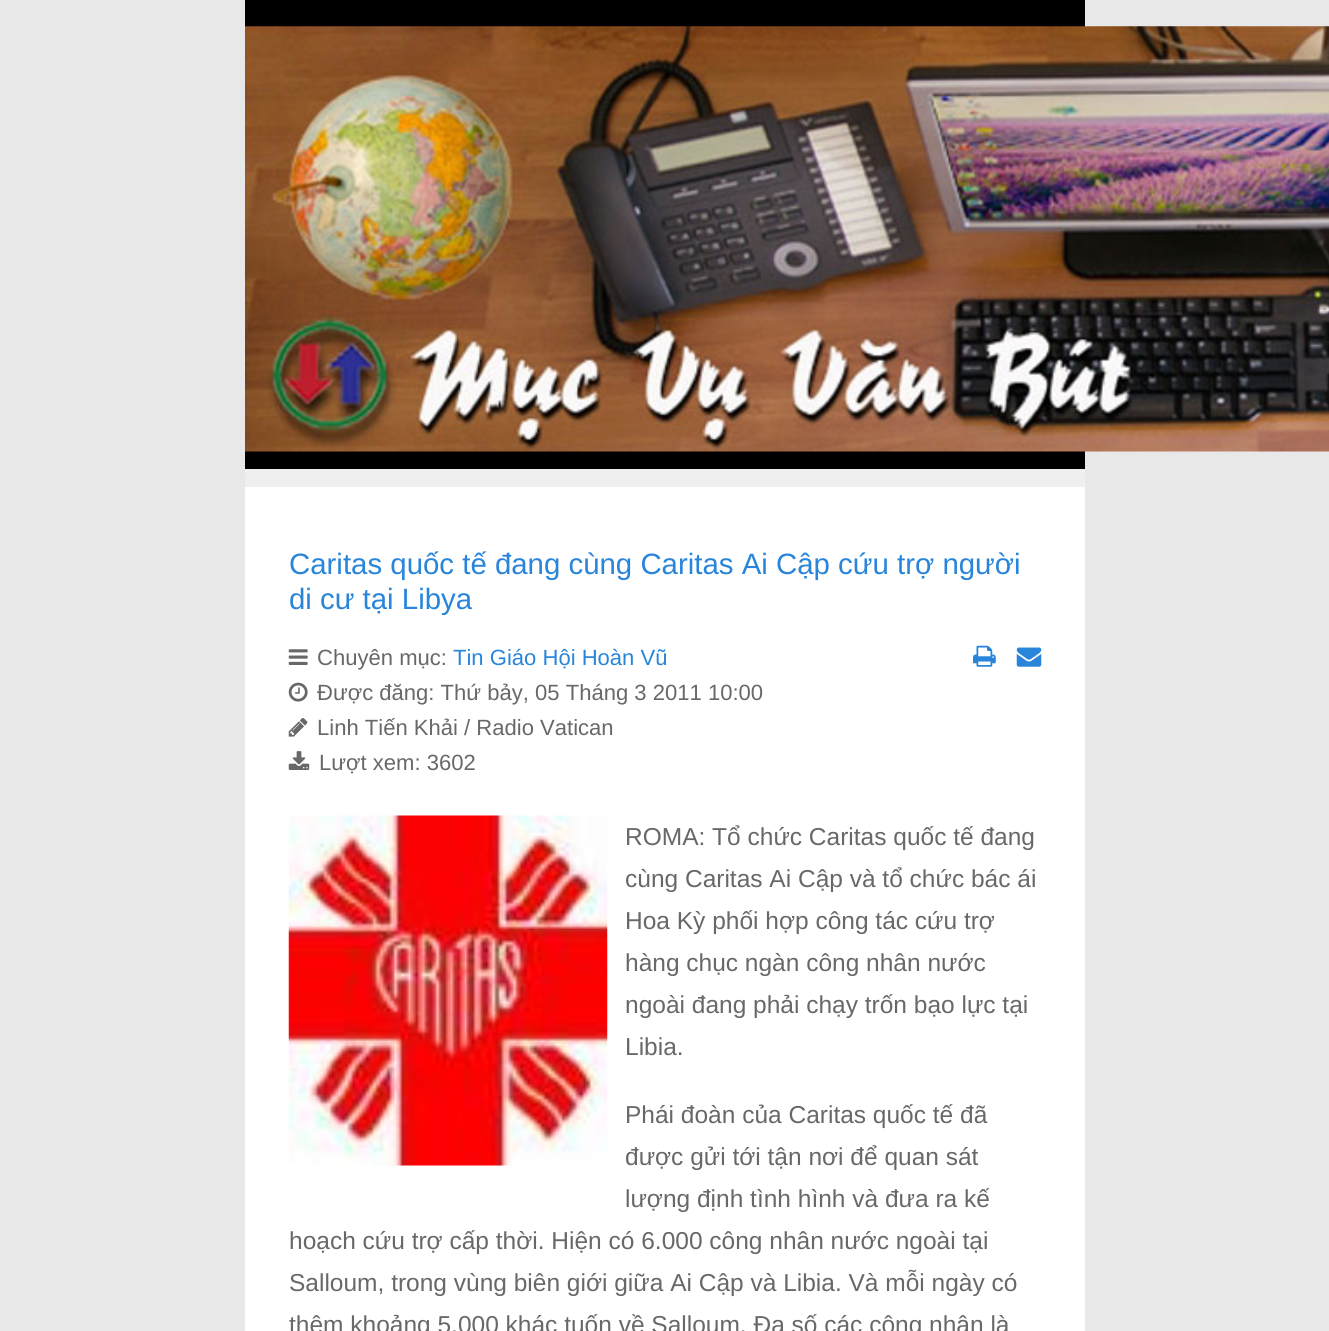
import math
import cairo


def paste(ctx, path, x, y, w, h):
	ctx.save()
	ctx.set_source_surface(cairo.ImageSurface.create_from_png(path), x, y)
	ctx.rectangle(x, y, w, h)
	ctx.fill()
	ctx.restore()

def draw(ctx):
	ctx.set_source_rgb(0.91, 0.91, 0.91)
	ctx.paint()
	ctx.set_source_rgb(0, 0, 0)
	ctx.rectangle(245, 0, 840, 469)
	ctx.fill()
	paste(ctx, 'media/1.png', 245, 26, 1084, 426)
	ctx.set_source_rgb(0.937, 0.937, 0.937)
	ctx.rectangle(245, 469, 840, 18)
	ctx.fill()
	ctx.set_source_rgb(1, 1, 1)
	ctx.rectangle(245, 487, 840, 844)
	ctx.fill()
	ctx.select_font_face('Liberation Sans')
	ctx.set_font_size(29.4)
	ctx.set_source_rgb(0.157, 0.522, 0.855)
	ctx.move_to(289, 574)
	ctx.show_text('Caritas quốc tế đang cùng Caritas Ai Cập cứu trợ người')
	ctx.move_to(289, 609)
	ctx.show_text('di cư tại Libya')
	paste(ctx, 'media/2.png', 288, 649, 20, 16)
	ctx.set_font_size(22.05)
	ctx.set_source_rgb(0.408, 0.408, 0.408)
	ctx.move_to(317, 665)
	ctx.show_text('Chuyên mục:')
	ctx.set_source_rgb(0.157, 0.522, 0.855)
	ctx.move_to(453, 665)
	ctx.show_text('Tin Giáo Hội Hoàn Vũ')
	paste(ctx, 'media/3.png', 288, 682, 20, 20)
	ctx.set_source_rgb(0.408, 0.408, 0.408)
	ctx.move_to(317, 700)
	ctx.show_text('Được đăng: Thứ bảy, 05 Tháng 3 2011 10:00')
	paste(ctx, 'media/4.png', 288, 718, 20, 19)
	ctx.move_to(317, 735)
	ctx.show_text('Linh Tiến Khải / Radio Vatican')
	paste(ctx, 'media/5.png', 288, 751, 22, 19)
	ctx.move_to(319, 770)
	ctx.show_text('Lượt xem: 3602')
	paste(ctx, 'media/6.png', 973, 645, 23, 22)
	paste(ctx, 'media/7.png', 1016, 647, 26, 20)
	paste(ctx, 'media/8.png', 288, 815, 320, 351)
	ctx.set_font_size(24.5)
	for x, y, s in [
		(625, 845, 'ROMA: Tổ chức Caritas quốc tế đang'),
		(625, 887, 'cùng Caritas Ai Cập và tổ chức bác ái'),
		(625, 929, 'Hoa Kỳ phối hợp công tác cứu trợ'),
		(625, 971, 'hàng chục ngàn công nhân nước'),
		(625, 1013, 'ngoài đang phải chạy trốn bạo lực tại'),
		(625, 1055, 'Libia.'),
		(625, 1123, 'Phái đoàn của Caritas quốc tế đã'),
		(625, 1165, 'được gửi tới tận nơi để quan sát'),
		(625, 1207, 'lượng định tình hình và đưa ra kế'),
		(289, 1249, 'hoạch cứu trợ cấp thời. Hiện có 6.000 công nhân nước ngoài tại'),
		(289, 1291, 'Salloum, trong vùng biên giới giữa Ai Cập và Libia. Và mỗi ngày có'),
		(289, 1333, 'thêm khoảng 5.000 khác tuốn về Salloum. Đa số các công nhân là'),
	]:
		ctx.move_to(x, y)
		ctx.show_text(s)


surface = cairo.ImageSurface(cairo.FORMAT_RGB24, 1329, 1331)
ctx = cairo.Context(surface)
options = cairo.FontOptions()
options.set_hint_metrics(cairo.HINT_METRICS_OFF)
options.set_hint_style(cairo.HINT_STYLE_NONE)
ctx.set_font_options(options)
ctx.set_miter_limit(4)
draw(ctx)
surface.write_to_png('image.png')
